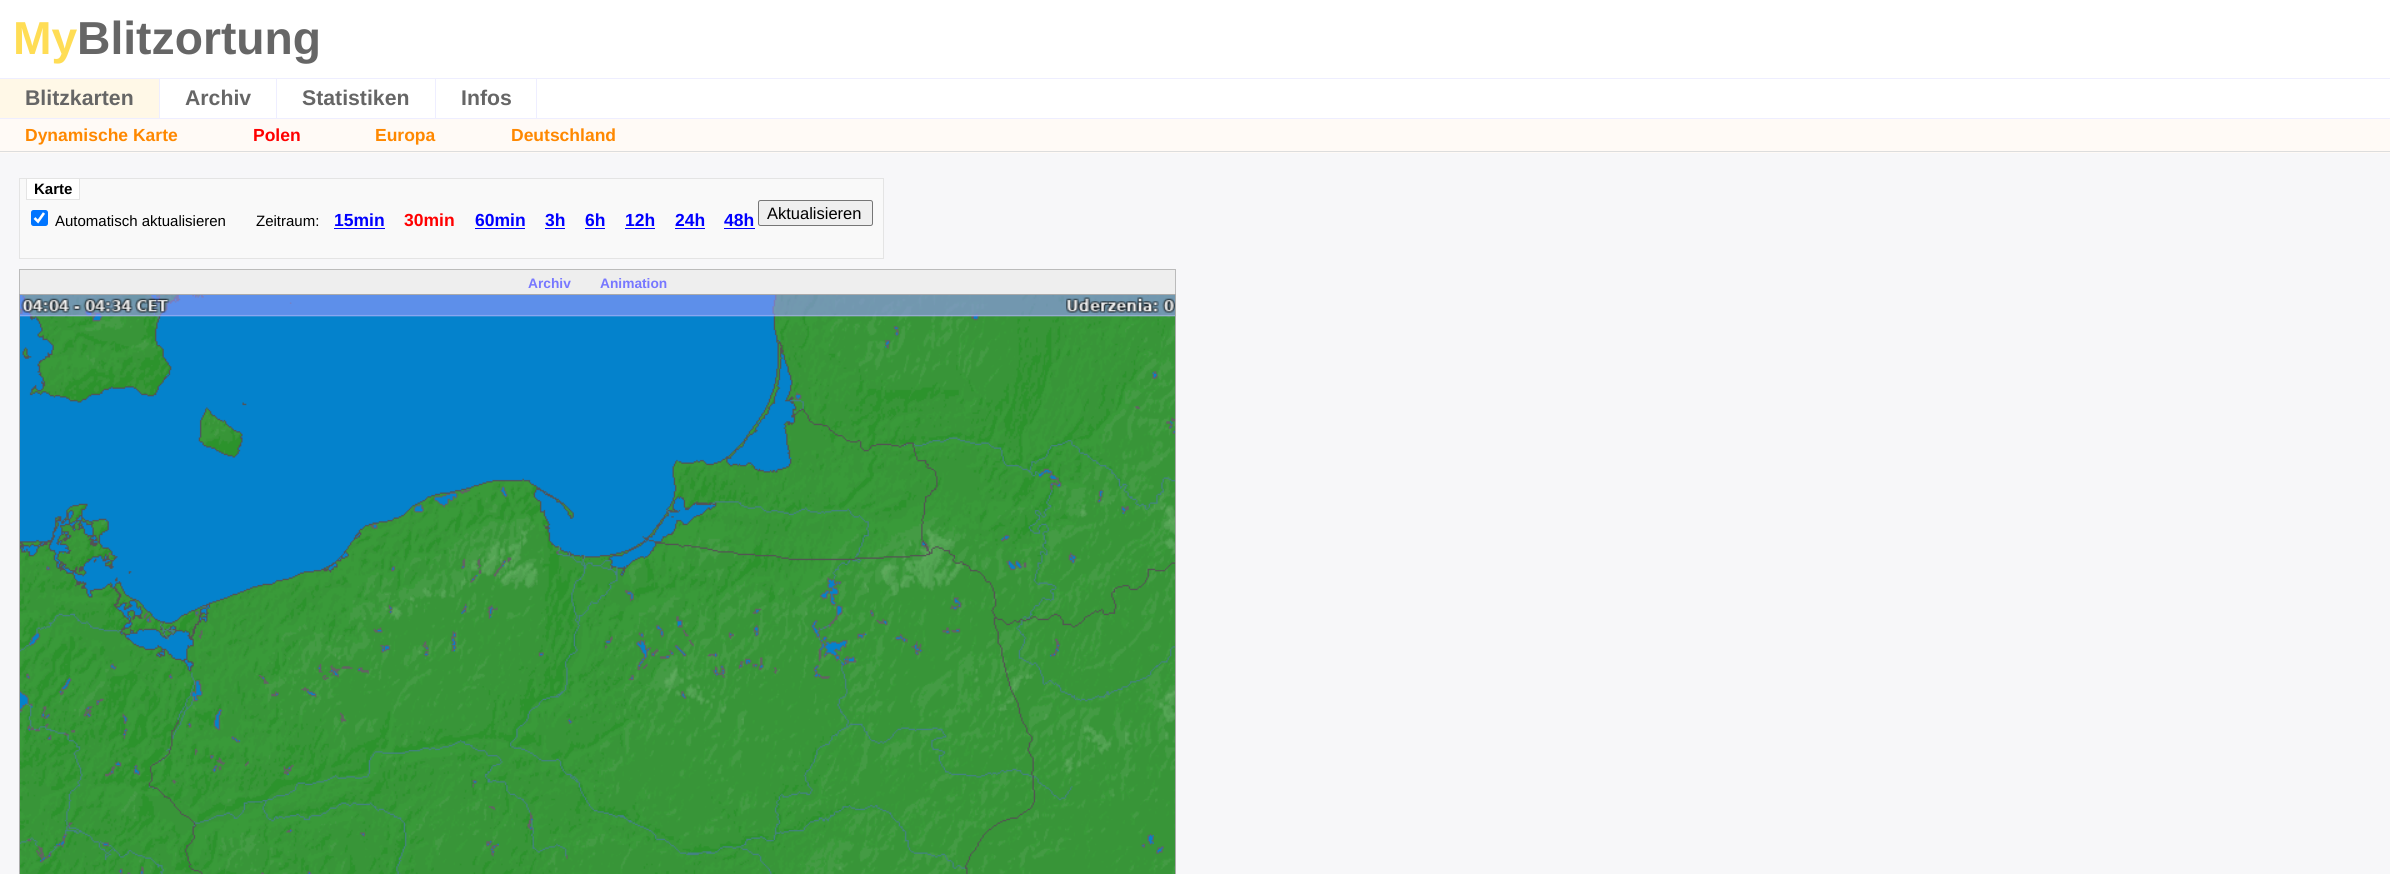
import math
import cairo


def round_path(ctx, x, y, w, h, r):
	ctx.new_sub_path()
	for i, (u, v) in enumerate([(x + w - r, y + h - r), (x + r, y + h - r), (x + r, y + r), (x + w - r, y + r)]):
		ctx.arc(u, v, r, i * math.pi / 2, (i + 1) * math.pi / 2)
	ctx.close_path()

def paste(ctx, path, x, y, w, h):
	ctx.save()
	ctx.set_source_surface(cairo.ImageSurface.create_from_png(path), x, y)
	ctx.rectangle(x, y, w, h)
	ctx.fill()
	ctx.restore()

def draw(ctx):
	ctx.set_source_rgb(0.965, 0.965, 0.976)
	ctx.paint()
	ctx.set_source_rgb(1, 1, 1)
	ctx.rectangle(0, 0, 2390, 78)
	ctx.fill()
	ctx.set_source_rgb(0.933, 0.933, 1)
	ctx.rectangle(0, 78, 2390, 1)
	ctx.fill()
	ctx.select_font_face('Liberation Sans', cairo.FONT_SLANT_NORMAL, cairo.FONT_WEIGHT_BOLD)
	ctx.set_font_size(46.25)
	ctx.set_source_rgb(1, 0.867, 0.333)
	ctx.move_to(13, 54)
	ctx.show_text('My')
	ctx.set_source_rgb(0.4, 0.4, 0.4)
	ctx.move_to(77, 54)
	ctx.show_text('Blitzortung')
	ctx.set_source_rgb(1, 1, 1)
	ctx.rectangle(160, 79, 2230, 39)
	ctx.fill()
	ctx.set_source_rgb(0.933, 0.933, 1)
	ctx.rectangle(0, 118, 2390, 1)
	ctx.rectangle(159, 79, 1, 39)
	ctx.fill()
	ctx.set_source_rgb(1, 0.969, 0.906)
	ctx.rectangle(0, 79, 159, 39)
	ctx.fill()
	ctx.set_font_size(21.25)
	ctx.set_source_rgb(0.4, 0.4, 0.4)
	ctx.move_to(25, 105)
	ctx.show_text('Blitzkarten')
	ctx.set_source_rgb(0.933, 0.933, 1)
	ctx.rectangle(276, 79, 1, 39)
	ctx.fill()
	ctx.set_source_rgb(0.4, 0.4, 0.4)
	ctx.move_to(185, 105)
	ctx.show_text('Archiv')
	ctx.set_source_rgb(0.933, 0.933, 1)
	ctx.rectangle(435, 79, 1, 39)
	ctx.fill()
	ctx.set_source_rgb(0.4, 0.4, 0.4)
	ctx.move_to(302, 105)
	ctx.show_text('Statistiken')
	ctx.set_source_rgb(0.933, 0.933, 1)
	ctx.rectangle(536, 79, 1, 39)
	ctx.fill()
	ctx.set_source_rgb(0.4, 0.4, 0.4)
	ctx.move_to(461, 105)
	ctx.show_text('Infos')
	ctx.set_source_rgb(1, 0.98, 0.961)
	ctx.rectangle(0, 119, 2390, 34)
	ctx.fill()
	ctx.set_source_rgb(0.867, 0.867, 0.867)
	ctx.rectangle(0, 151, 2390, 1)
	ctx.fill()
	ctx.set_font_size(17.5)
	ctx.set_source_rgb(1, 0.533, 0)
	ctx.move_to(25, 141)
	ctx.show_text('Dynamische Karte')
	ctx.set_source_rgb(1, 0, 0)
	ctx.move_to(253, 141)
	ctx.show_text('Polen')
	ctx.set_source_rgb(1, 0.533, 0)
	ctx.move_to(375, 141)
	ctx.show_text('Europa')
	ctx.move_to(511, 141)
	ctx.show_text('Deutschland')
	ctx.set_source_rgb(0.976, 0.976, 0.976)
	ctx.rectangle(19.5, 178.5, 864, 80)
	ctx.fill_preserve()
	ctx.set_source_rgb(0.894, 0.894, 0.894)
	ctx.set_line_width(1)
	ctx.stroke()
	ctx.set_source_rgb(1, 1, 1)
	ctx.rectangle(26.5, 178.5, 53, 21)
	ctx.fill_preserve()
	ctx.set_source_rgb(0.894, 0.894, 0.894)
	ctx.stroke()
	ctx.set_font_size(15)
	ctx.set_source_rgb(0, 0, 0)
	ctx.move_to(34, 194)
	ctx.show_text('Karte')
	ctx.set_source_rgb(0, 0.459, 1)
	round_path(ctx, 31, 210, 17, 16, 2.5)
	ctx.fill()
	ctx.new_path()
	ctx.move_to(34.5, 218)
	ctx.line_to(38, 221.5)
	ctx.line_to(44, 213)
	ctx.set_source_rgb(1, 1, 1)
	ctx.set_line_width(2.6)
	ctx.stroke()
	ctx.select_font_face('Liberation Sans')
	ctx.set_source_rgb(0, 0, 0)
	ctx.move_to(55, 226)
	ctx.show_text('Automatisch aktualisieren')
	ctx.move_to(256, 226)
	ctx.show_text('Zeitraum:')
	ctx.select_font_face('Liberation Sans', cairo.FONT_SLANT_NORMAL, cairo.FONT_WEIGHT_BOLD)
	ctx.set_font_size(17.5)
	ctx.set_source_rgb(0, 0, 1)
	ctx.move_to(334, 226)
	ctx.show_text('15min')
	ctx.rectangle(334, 228, 51, 1)
	ctx.fill()
	ctx.set_source_rgb(1, 0, 0)
	ctx.move_to(404, 226)
	ctx.show_text('30min')
	ctx.set_source_rgb(0, 0, 1)
	ctx.move_to(475, 226)
	ctx.show_text('60min')
	ctx.rectangle(475, 228, 50, 1)
	ctx.fill()
	ctx.move_to(545, 226)
	ctx.show_text('3h')
	ctx.rectangle(545, 228, 20, 1)
	ctx.fill()
	ctx.move_to(585, 226)
	ctx.show_text('6h')
	ctx.rectangle(585, 228, 20, 1)
	ctx.fill()
	ctx.move_to(625, 226)
	ctx.show_text('12h')
	ctx.rectangle(625, 228, 30, 1)
	ctx.fill()
	ctx.move_to(675, 226)
	ctx.show_text('24h')
	ctx.rectangle(675, 228, 30, 1)
	ctx.fill()
	ctx.move_to(724, 226)
	ctx.show_text('48h')
	ctx.rectangle(724, 228, 31, 1)
	ctx.fill()
	ctx.set_source_rgb(0.937, 0.937, 0.937)
	round_path(ctx, 758.5, 200.5, 114, 25, 2)
	ctx.fill_preserve()
	ctx.set_source_rgb(0.463, 0.463, 0.463)
	ctx.set_line_width(1)
	ctx.stroke()
	ctx.select_font_face('Liberation Sans')
	ctx.set_font_size(16.5)
	ctx.set_source_rgb(0, 0, 0)
	ctx.move_to(767, 219)
	ctx.show_text('Aktualisieren')
	ctx.set_source_rgb(0.933, 0.933, 0.933)
	ctx.rectangle(20, 270, 1155, 24)
	ctx.fill()
	ctx.set_source_rgb(0.733, 0.733, 0.733)
	ctx.rectangle(19, 269, 1157, 1)
	ctx.rectangle(1175, 269, 1, 25)
	ctx.rectangle(19, 269, 1, 25)
	ctx.fill()
	ctx.select_font_face('Liberation Sans', cairo.FONT_SLANT_NORMAL, cairo.FONT_WEIGHT_BOLD)
	ctx.set_font_size(13.75)
	ctx.set_source_rgb(0.467, 0.467, 1)
	ctx.move_to(528, 288)
	ctx.show_text('Archiv')
	ctx.move_to(600, 288)
	ctx.show_text('Animation')
	paste(ctx, 'media/1.png', 20, 295, 1155, 579)
	ctx.rectangle(19.5, 294.5, 1156, 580)
	ctx.set_source_rgb(0.667, 0.667, 0.667)
	ctx.stroke()


surface = cairo.ImageSurface(cairo.FORMAT_RGB24, 2390, 874)
ctx = cairo.Context(surface)
options = cairo.FontOptions()
options.set_hint_metrics(cairo.HINT_METRICS_OFF)
options.set_hint_style(cairo.HINT_STYLE_NONE)
ctx.set_font_options(options)
ctx.set_miter_limit(4)
draw(ctx)
surface.write_to_png('image.png')
